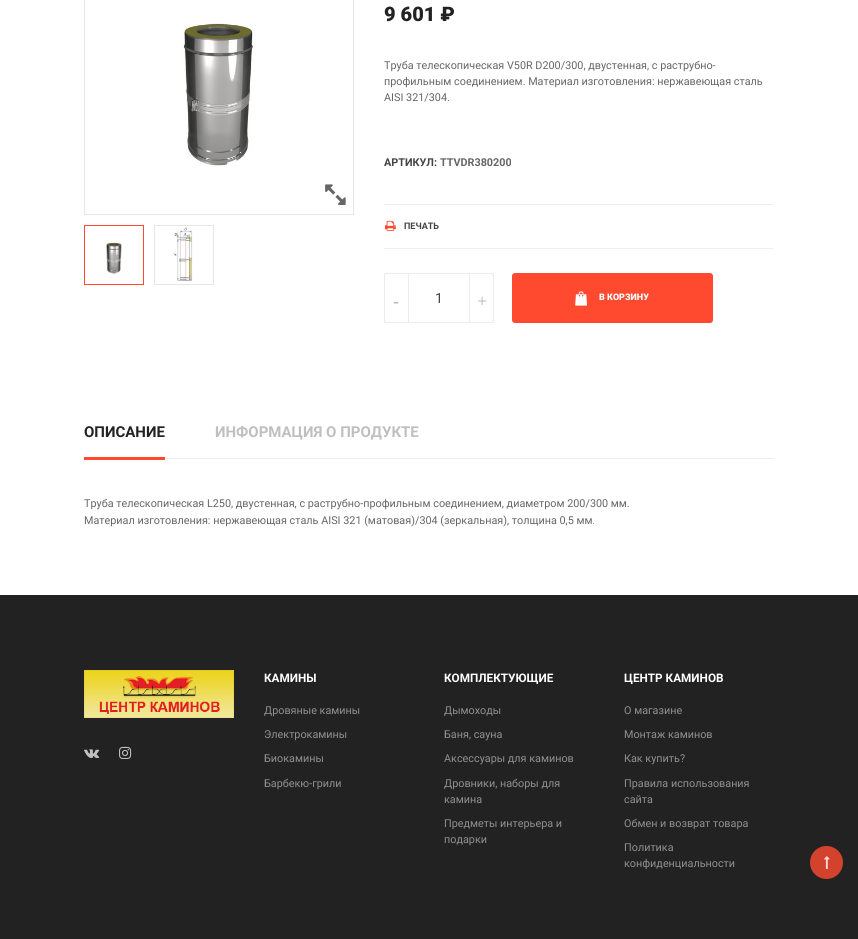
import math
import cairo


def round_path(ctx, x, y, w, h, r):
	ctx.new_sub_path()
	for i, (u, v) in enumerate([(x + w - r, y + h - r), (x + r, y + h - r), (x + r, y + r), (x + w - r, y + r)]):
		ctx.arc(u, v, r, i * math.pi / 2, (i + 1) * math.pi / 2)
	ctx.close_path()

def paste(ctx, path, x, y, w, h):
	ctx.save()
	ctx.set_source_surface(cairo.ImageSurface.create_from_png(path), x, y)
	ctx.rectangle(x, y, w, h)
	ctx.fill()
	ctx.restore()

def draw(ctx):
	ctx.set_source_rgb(1, 1, 1)
	ctx.paint()
	ctx.rectangle(84.5, -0.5, 269, 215)
	ctx.set_source_rgb(0.902, 0.902, 0.902)
	ctx.set_line_width(1)
	ctx.stroke()
	paste(ctx, 'media/1.png', 181, 23, 75, 143)
	paste(ctx, 'media/2.png', 325, 184, 21, 21)
	ctx.rectangle(84.5, 225.5, 59, 59)
	ctx.set_source_rgb(1, 0.29, 0.184)
	ctx.stroke()
	paste(ctx, 'media/3.png', 106, 242, 16, 32)
	ctx.rectangle(154.5, 225.5, 59, 59)
	ctx.set_source_rgb(0.902, 0.902, 0.902)
	ctx.stroke()
	paste(ctx, 'media/4.png', 173, 227, 20, 54)
	ctx.select_font_face('Roboto Black')
	ctx.set_font_size(20)
	ctx.set_source_rgb(0.133, 0.133, 0.133)
	ctx.move_to(384, 21)
	ctx.show_text('9 601 ₽')
	ctx.select_font_face('Roboto')
	ctx.set_font_size(10.82)
	ctx.set_source_rgb(0.4, 0.4, 0.4)
	for x, y, s in [
		(384, 69, 'Труба телескопическая V50R D200/300, двустенная, с раструбно-'),
		(384, 85, 'профильным соединением. Материал изготовления: нержавеющая сталь'),
		(384, 101, 'AISI 321/304.'),
	]:
		ctx.move_to(x, y)
		ctx.show_text(s)
	ctx.select_font_face('Roboto', cairo.FONT_SLANT_NORMAL, cairo.FONT_WEIGHT_BOLD)
	ctx.set_source_rgb(0.267, 0.267, 0.267)
	ctx.move_to(384, 166)
	ctx.show_text('АРТИКУЛ:')
	ctx.set_source_rgb(0.4, 0.4, 0.4)
	ctx.move_to(440, 166)
	ctx.show_text('TTVDR380200')
	ctx.set_source_rgb(0.933, 0.933, 0.933)
	ctx.rectangle(384, 204, 390, 1)
	ctx.fill()
	ctx.rectangle(384, 248, 390, 1)
	ctx.fill()
	paste(ctx, 'media/5.png', 385, 220, 11, 11)
	ctx.set_font_size(9)
	ctx.set_source_rgb(0.267, 0.267, 0.267)
	ctx.move_to(404, 229)
	ctx.show_text('ПЕЧАТЬ')
	round_path(ctx, 384.5, 273.5, 109, 49, 2.5)
	ctx.set_source_rgb(0.922, 0.922, 0.922)
	ctx.stroke()
	ctx.select_font_face('Roboto')
	ctx.set_font_size(14)
	ctx.set_source_rgb(0.267, 0.267, 0.267)
	ctx.move_to(435, 303)
	ctx.show_text('1')
	ctx.save()
	ctx.rectangle(384, 273, 110, 50)
	ctx.clip()
	ctx.new_path()
	ctx.move_to(386, 273.5)
	ctx.line_to(408.5, 273.5)
	ctx.line_to(408.5, 322.5)
	ctx.line_to(386, 322.5)
	ctx.curve_to(384.5, 322.5, 383.5, 321.5, 383.5, 320)
	ctx.line_to(383.5, 276)
	ctx.curve_to(383.5, 274.5, 384.5, 273.5, 386, 273.5)
	ctx.close_path()
	ctx.set_source_rgb(0.922, 0.922, 0.922)
	ctx.stroke()
	ctx.restore()
	ctx.select_font_face('Liberation Serif')
	ctx.set_font_size(18)
	ctx.set_source_rgb(0.706, 0.706, 0.706)
	ctx.move_to(393, 307)
	ctx.show_text('-')
	ctx.save()
	ctx.rectangle(384, 273, 110, 50)
	ctx.clip()
	ctx.new_path()
	ctx.move_to(469.5, 273.5)
	ctx.line_to(492, 273.5)
	ctx.curve_to(493.5, 273.5, 494.5, 274.5, 494.5, 276)
	ctx.line_to(494.5, 320)
	ctx.curve_to(494.5, 321.5, 493.5, 322.5, 492, 322.5)
	ctx.line_to(469.5, 322.5)
	ctx.close_path()
	ctx.set_source_rgb(0.922, 0.922, 0.922)
	ctx.stroke()
	ctx.restore()
	ctx.move_to(477, 307)
	ctx.show_text('+')
	ctx.set_source_rgb(1, 0.29, 0.184)
	round_path(ctx, 512, 273, 201, 50, 3)
	ctx.fill()
	paste(ctx, 'media/6.png', 575, 291, 12, 15)
	ctx.select_font_face('Roboto Black')
	ctx.set_font_size(9)
	ctx.set_source_rgb(1, 1, 1)
	ctx.move_to(599, 300)
	ctx.show_text('В КОРЗИНУ')
	ctx.set_source_rgb(0.933, 0.933, 0.933)
	ctx.rectangle(165, 458, 609, 1)
	ctx.fill()
	ctx.select_font_face('Roboto', cairo.FONT_SLANT_NORMAL, cairo.FONT_WEIGHT_BOLD)
	ctx.set_font_size(15)
	ctx.set_source_rgb(0.133, 0.133, 0.133)
	ctx.move_to(84, 437)
	ctx.show_text('ОПИСАНИЕ')
	ctx.set_source_rgb(1, 0.29, 0.184)
	ctx.rectangle(84, 457, 81, 3)
	ctx.fill()
	ctx.set_source_rgb(0.749, 0.749, 0.749)
	ctx.move_to(215, 437)
	ctx.show_text('ИНФОРМАЦИЯ О ПРОДУКТЕ')
	ctx.select_font_face('Roboto')
	ctx.set_font_size(10.82)
	ctx.set_source_rgb(0.4, 0.4, 0.4)
	ctx.move_to(84, 507)
	ctx.show_text('Труба телескопическая L250, двустенная, с раструбно-профильным соединением, диаметром 200/300 мм.')
	ctx.move_to(84, 524)
	ctx.show_text('Материал изготовления: нержавеющая сталь AISI 321 (матовая)/304 (зеркальная), толщина 0,5 мм.')
	ctx.set_source_rgb(0.133, 0.133, 0.133)
	ctx.rectangle(0, 595, 858, 344)
	ctx.fill()
	paste(ctx, 'media/7.png', 84, 670, 150, 48)
	paste(ctx, 'media/8.png', 84, 749, 16, 9)
	paste(ctx, 'media/9.png', 119, 746, 13, 13)
	ctx.select_font_face('Roboto', cairo.FONT_SLANT_NORMAL, cairo.FONT_WEIGHT_BOLD)
	ctx.set_font_size(11.75)
	ctx.set_source_rgb(1, 1, 1)
	ctx.move_to(264, 682)
	ctx.show_text('КАМИНЫ')
	ctx.select_font_face('Roboto')
	ctx.set_font_size(10.82)
	ctx.set_source_rgb(0.565, 0.565, 0.565)
	for x, y, s in [
		(264, 714, 'Дровяные камины'),
		(264, 738, 'Электрокамины'),
		(264, 762, 'Биокамины'),
		(264, 787, 'Барбекю-грили'),
	]:
		ctx.move_to(x, y)
		ctx.show_text(s)
	ctx.select_font_face('Roboto', cairo.FONT_SLANT_NORMAL, cairo.FONT_WEIGHT_BOLD)
	ctx.set_font_size(11.75)
	ctx.set_source_rgb(1, 1, 1)
	ctx.move_to(444, 682)
	ctx.show_text('КОМПЛЕКТУЮЩИЕ')
	ctx.select_font_face('Roboto')
	ctx.set_font_size(10.82)
	ctx.set_source_rgb(0.565, 0.565, 0.565)
	for x, y, s in [
		(444, 714, 'Дымоходы'),
		(444, 738, 'Баня, сауна'),
		(444, 762, 'Аксессуары для каминов'),
		(444, 787, 'Дровники, наборы для'),
		(444, 803, 'камина'),
		(444, 827, 'Предметы интерьера и'),
		(444, 843, 'подарки'),
	]:
		ctx.move_to(x, y)
		ctx.show_text(s)
	ctx.select_font_face('Roboto', cairo.FONT_SLANT_NORMAL, cairo.FONT_WEIGHT_BOLD)
	ctx.set_font_size(11.75)
	ctx.set_source_rgb(1, 1, 1)
	ctx.move_to(624, 682)
	ctx.show_text('ЦЕНТР КАМИНОВ')
	ctx.select_font_face('Roboto')
	ctx.set_font_size(10.82)
	ctx.set_source_rgb(0.565, 0.565, 0.565)
	for x, y, s in [
		(624, 714, 'О магазине'),
		(624, 738, 'Монтаж каминов'),
		(624, 762, 'Как купить?'),
		(624, 787, 'Правила использования'),
		(624, 803, 'сайта'),
		(624, 827, 'Обмен и возврат товара'),
		(624, 851, 'Политика'),
		(624, 867, 'конфиденциальности'),
	]:
		ctx.move_to(x, y)
		ctx.show_text(s)
	ctx.set_source_rgb(0.827, 0.259, 0.173)
	ctx.new_path()
	ctx.arc(826.5, 862.5, 16.5, 0, 2 * math.pi)
	ctx.fill()
	paste(ctx, 'media/10.png', 824, 856, 6, 13)


surface = cairo.ImageSurface(cairo.FORMAT_RGB24, 858, 939)
ctx = cairo.Context(surface)
options = cairo.FontOptions()
options.set_hint_metrics(cairo.HINT_METRICS_OFF)
options.set_hint_style(cairo.HINT_STYLE_NONE)
ctx.set_font_options(options)
ctx.set_miter_limit(4)
draw(ctx)
surface.write_to_png('image.png')
